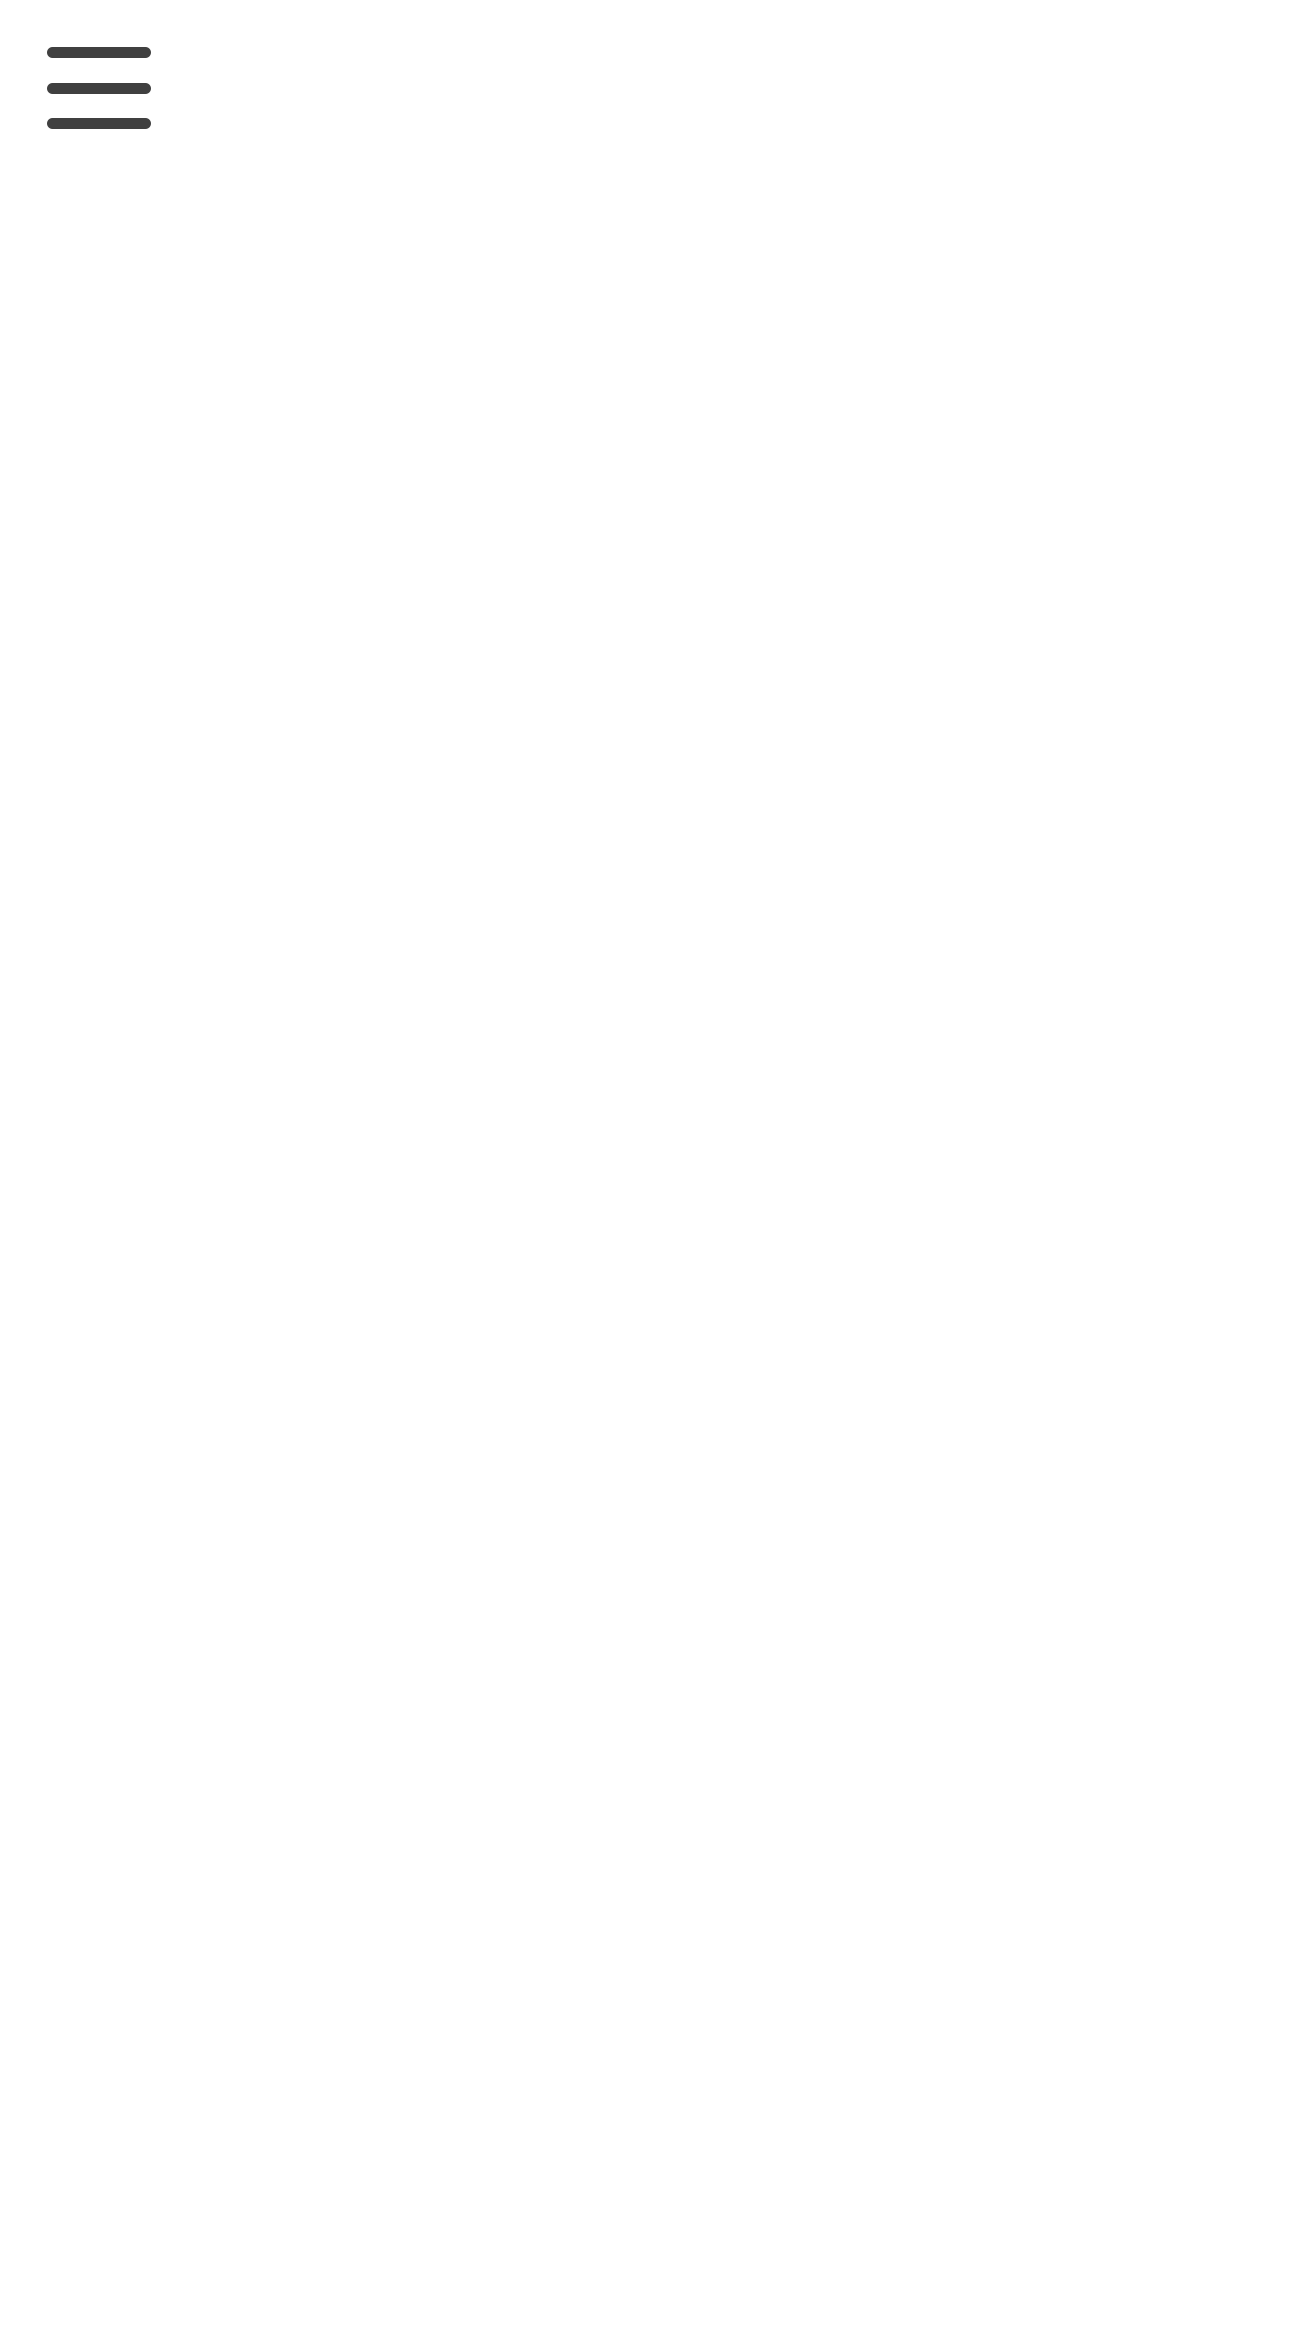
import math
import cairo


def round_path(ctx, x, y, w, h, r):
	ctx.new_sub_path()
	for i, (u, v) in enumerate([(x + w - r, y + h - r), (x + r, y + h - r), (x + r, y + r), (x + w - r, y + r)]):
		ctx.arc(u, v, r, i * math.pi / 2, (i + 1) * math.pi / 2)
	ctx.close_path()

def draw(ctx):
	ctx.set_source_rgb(1, 1, 1)
	ctx.paint()
	ctx.set_source_rgb(0.251, 0.251, 0.251)
	round_path(ctx, 47, 47, 104, 11, 5.5)
	ctx.fill()
	round_path(ctx, 47, 83, 104, 11, 5.5)
	ctx.fill()
	round_path(ctx, 47, 118, 104, 11, 5.5)
	ctx.fill()


surface = cairo.ImageSurface(cairo.FORMAT_RGB24, 1298, 2339)
ctx = cairo.Context(surface)
options = cairo.FontOptions()
options.set_hint_metrics(cairo.HINT_METRICS_OFF)
options.set_hint_style(cairo.HINT_STYLE_NONE)
ctx.set_font_options(options)
ctx.set_miter_limit(4)
draw(ctx)
surface.write_to_png('image.png')
